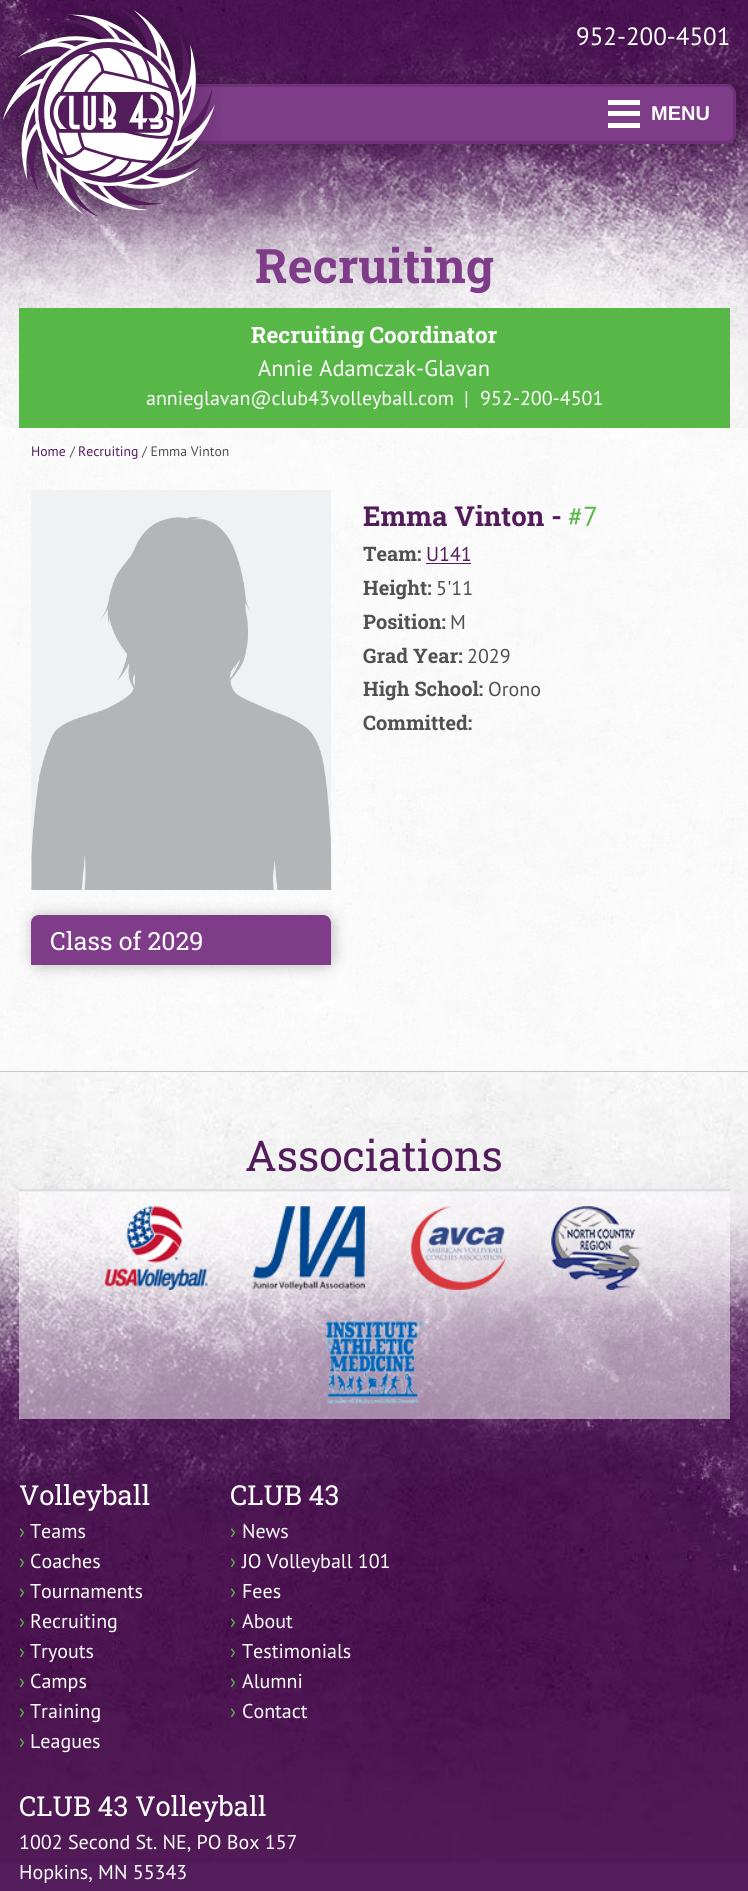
import math
import cairo


def round_path(ctx, x, y, w, h, r):
	ctx.new_sub_path()
	for i, (u, v) in enumerate([(x + w - r, y + h - r), (x + r, y + h - r), (x + r, y + r), (x + w - r, y + r)]):
		ctx.arc(u, v, r, i * math.pi / 2, (i + 1) * math.pi / 2)
	ctx.close_path()

def blur_box(ctx, x, y, w, h, r, blur, alpha):
	ctx.push_group_with_content(cairo.CONTENT_ALPHA)
	ctx.set_operator(cairo.OPERATOR_SOURCE)
	for i in range(15, -16, -2):
		e = blur * i / 6
		if min(w, h) + 2 * e > 0:
			ctx.set_source_rgba(0, 0, 0, alpha * math.erfc((i - 1) / 8.5) / 2)
			round_path(ctx, x - e, y - e, w + 2 * e, h + 2 * e, max(0, min(r + e + blur * .6, min(w, h) / 2 + e)))
			ctx.fill()
	ctx.mask(ctx.pop_group())

def paste(ctx, path, x, y, w, h):
	ctx.save()
	ctx.set_source_surface(cairo.ImageSurface.create_from_png(path), x, y)
	ctx.rectangle(x, y, w, h)
	ctx.fill()
	ctx.restore()

def draw(ctx):
	ctx.set_source_rgb(1, 1, 1)
	ctx.paint()
	paste(ctx, 'media/1.png', 0, 440, 748, 631)
	paste(ctx, 'media/2.png', 0, 0, 748, 440)
	ctx.set_source_rgb(0, 0, 0)
	blur_box(ctx, 164, 85, 574, 60, 10, 7.5, 0.25)
	ctx.set_source_rgb(0.498, 0.235, 0.537)
	round_path(ctx, 164.5, 85.5, 570, 57, 8.5)
	ctx.fill_preserve()
	ctx.set_source_rgb(0.439, 0.196, 0.475)
	ctx.set_line_width(3)
	ctx.stroke()
	paste(ctx, 'media/3.png', 2, 9, 219, 217)
	ctx.select_font_face('PT Sans')
	ctx.set_font_size(25)
	ctx.set_source_rgb(1, 1, 1)
	ctx.move_to(576, 45)
	ctx.show_text('952-200-4501')
	ctx.rectangle(608, 111, 32, 5)
	ctx.rectangle(608, 100, 32, 5)
	ctx.rectangle(608, 123, 32, 5)
	ctx.fill()
	ctx.select_font_face('Liberation Sans', cairo.FONT_SLANT_NORMAL, cairo.FONT_WEIGHT_BOLD)
	ctx.set_font_size(20)
	ctx.move_to(651, 120)
	ctx.show_text('MENU')
	ctx.select_font_face('Roboto Slab', cairo.FONT_SLANT_NORMAL, cairo.FONT_WEIGHT_BOLD)
	ctx.set_font_size(47.5)
	ctx.set_source_rgb(0.498, 0.235, 0.537)
	ctx.move_to(255, 283)
	ctx.show_text('Recruiting')
	ctx.set_source_rgb(0.345, 0.722, 0.278)
	ctx.rectangle(19, 308, 711, 120)
	ctx.fill()
	ctx.set_font_size(22.5)
	ctx.set_source_rgb(1, 1, 1)
	ctx.move_to(251, 343)
	ctx.show_text('Recruiting Coordinator')
	ctx.select_font_face('PT Sans')
	ctx.move_to(258, 376)
	ctx.show_text('Annie Adamczak-Glavan')
	ctx.set_font_size(20)
	for x, y, s in [
		(146, 405, 'annieglavan@club43volleyball.com'),
		(464, 405, '|'),
		(480, 405, '952-200-4501'),
	]:
		ctx.move_to(x, y)
		ctx.show_text(s)
	ctx.set_source_rgba(1, 1, 1, 0.5)
	ctx.rectangle(0, 428, 748, 643)
	ctx.fill()
	ctx.set_font_size(13.75)
	ctx.set_source_rgb(0.325, 0.114, 0.357)
	ctx.move_to(31, 456)
	ctx.show_text('Home')
	ctx.set_source_rgb(0.314, 0.318, 0.322)
	ctx.move_to(70, 456)
	ctx.show_text('/')
	ctx.set_source_rgb(0.325, 0.114, 0.357)
	ctx.move_to(78, 456)
	ctx.show_text('Recruiting')
	ctx.set_source_rgb(0.314, 0.318, 0.322)
	ctx.move_to(142, 456)
	ctx.show_text('/ Emma Vinton')
	paste(ctx, 'media/4.png', 31, 490, 301, 400)
	ctx.select_font_face('Roboto Slab', cairo.FONT_SLANT_NORMAL, cairo.FONT_WEIGHT_BOLD)
	ctx.set_font_size(27.5)
	ctx.set_source_rgb(0.325, 0.114, 0.357)
	ctx.move_to(363, 526)
	ctx.show_text('Emma Vinton -')
	ctx.select_font_face('PT Sans')
	ctx.set_source_rgb(0.345, 0.722, 0.278)
	ctx.move_to(568, 526)
	ctx.show_text('#7')
	ctx.select_font_face('Roboto Slab', cairo.FONT_SLANT_NORMAL, cairo.FONT_WEIGHT_BOLD)
	ctx.set_font_size(20)
	ctx.set_source_rgb(0.314, 0.318, 0.322)
	ctx.move_to(363, 561)
	ctx.show_text('Team:')
	ctx.select_font_face('PT Sans')
	ctx.set_source_rgb(0.325, 0.114, 0.357)
	ctx.move_to(426, 561)
	ctx.show_text('U141')
	ctx.rectangle(426, 563, 45, 1)
	ctx.fill()
	ctx.select_font_face('Roboto Slab', cairo.FONT_SLANT_NORMAL, cairo.FONT_WEIGHT_BOLD)
	ctx.set_source_rgb(0.314, 0.318, 0.322)
	ctx.move_to(363, 595)
	ctx.show_text('Height:')
	ctx.select_font_face('PT Sans')
	ctx.move_to(436, 595)
	ctx.show_text('5\'11')
	ctx.select_font_face('Roboto Slab', cairo.FONT_SLANT_NORMAL, cairo.FONT_WEIGHT_BOLD)
	ctx.move_to(363, 629)
	ctx.show_text('Position:')
	ctx.select_font_face('PT Sans')
	ctx.move_to(450, 629)
	ctx.show_text('M')
	ctx.select_font_face('Roboto Slab', cairo.FONT_SLANT_NORMAL, cairo.FONT_WEIGHT_BOLD)
	ctx.move_to(363, 663)
	ctx.show_text('Grad Year:')
	ctx.select_font_face('PT Sans')
	ctx.move_to(467, 663)
	ctx.show_text('2029')
	ctx.select_font_face('Roboto Slab', cairo.FONT_SLANT_NORMAL, cairo.FONT_WEIGHT_BOLD)
	ctx.move_to(363, 696)
	ctx.show_text('High School:')
	ctx.select_font_face('PT Sans')
	ctx.move_to(488, 696)
	ctx.show_text('Orono')
	ctx.select_font_face('Roboto Slab', cairo.FONT_SLANT_NORMAL, cairo.FONT_WEIGHT_BOLD)
	ctx.move_to(363, 730)
	ctx.show_text('Committed:')
	ctx.set_source_rgb(0, 0, 0)
	blur_box(ctx, 33, 916, 300, 50, 8, 7.5, 0.25)
	ctx.set_source_rgb(0.498, 0.235, 0.537)
	ctx.new_path()
	ctx.move_to(39, 915)
	ctx.line_to(323, 915)
	ctx.curve_to(327.5, 915, 331, 918.5, 331, 923)
	ctx.line_to(331, 965)
	ctx.line_to(31, 965)
	ctx.line_to(31, 923)
	ctx.curve_to(31, 918.5, 34.5, 915, 39, 915)
	ctx.close_path()
	ctx.fill()
	ctx.select_font_face('Roboto Slab')
	ctx.set_font_size(25)
	ctx.set_source_rgb(1, 1, 1)
	ctx.move_to(50, 950)
	ctx.show_text('Class of 2029')
	ctx.set_source_rgb(0.325, 0.114, 0.357)
	ctx.rectangle(0, 1071, 748, 820)
	ctx.fill()
	paste(ctx, 'media/5.png', 0, 1071, 748, 791)
	ctx.set_source_rgb(0.863, 0.867, 0.871)
	ctx.rectangle(19, 1189, 711, 3)
	ctx.fill()
	ctx.set_font_size(42.5)
	ctx.set_source_rgb(0.325, 0.114, 0.357)
	ctx.move_to(245, 1171)
	ctx.show_text('Associations')
	ctx.set_source_rgba(1, 1, 1, 0.5)
	ctx.rectangle(19, 1191, 711, 228)
	ctx.fill()
	paste(ctx, 'media/6.png', 105, 1206, 103, 84)
	paste(ctx, 'media/7.png', 252, 1206, 113, 84)
	paste(ctx, 'media/8.png', 411, 1206, 96, 84)
	paste(ctx, 'media/9.png', 551, 1206, 92, 84)
	paste(ctx, 'media/10.png', 326, 1321, 98, 83)
	ctx.set_font_size(27.5)
	ctx.set_source_rgb(1, 1, 1)
	ctx.move_to(19, 1505)
	ctx.show_text('Volleyball')
	ctx.select_font_face('PT Sans')
	ctx.set_font_size(20)
	ctx.set_source_rgb(0.345, 0.722, 0.278)
	ctx.move_to(19, 1538)
	ctx.show_text('›')
	ctx.set_source_rgb(1, 1, 1)
	ctx.move_to(30, 1538)
	ctx.show_text('Teams')
	ctx.set_source_rgb(0.345, 0.722, 0.278)
	ctx.move_to(19, 1568)
	ctx.show_text('›')
	ctx.set_source_rgb(1, 1, 1)
	ctx.move_to(30, 1568)
	ctx.show_text('Coaches')
	ctx.set_source_rgb(0.345, 0.722, 0.278)
	ctx.move_to(19, 1598)
	ctx.show_text('›')
	ctx.set_source_rgb(1, 1, 1)
	ctx.move_to(30, 1598)
	ctx.show_text('Tournaments')
	ctx.set_source_rgb(0.345, 0.722, 0.278)
	ctx.move_to(19, 1628)
	ctx.show_text('›')
	ctx.set_source_rgb(1, 1, 1)
	ctx.move_to(30, 1628)
	ctx.show_text('Recruiting')
	ctx.set_source_rgb(0.345, 0.722, 0.278)
	ctx.move_to(19, 1658)
	ctx.show_text('›')
	ctx.set_source_rgb(1, 1, 1)
	ctx.move_to(30, 1658)
	ctx.show_text('Tryouts')
	ctx.set_source_rgb(0.345, 0.722, 0.278)
	ctx.move_to(19, 1688)
	ctx.show_text('›')
	ctx.set_source_rgb(1, 1, 1)
	ctx.move_to(30, 1688)
	ctx.show_text('Camps')
	ctx.set_source_rgb(0.345, 0.722, 0.278)
	ctx.move_to(19, 1718)
	ctx.show_text('›')
	ctx.set_source_rgb(1, 1, 1)
	ctx.move_to(30, 1718)
	ctx.show_text('Training')
	ctx.set_source_rgb(0.345, 0.722, 0.278)
	ctx.move_to(19, 1748)
	ctx.show_text('›')
	ctx.set_source_rgb(1, 1, 1)
	ctx.move_to(30, 1748)
	ctx.show_text('Leagues')
	ctx.select_font_face('Roboto Slab')
	ctx.set_font_size(27.5)
	ctx.move_to(230, 1505)
	ctx.show_text('CLUB 43')
	ctx.select_font_face('PT Sans')
	ctx.set_font_size(20)
	ctx.set_source_rgb(0.345, 0.722, 0.278)
	ctx.move_to(230, 1538)
	ctx.show_text('›')
	ctx.set_source_rgb(1, 1, 1)
	ctx.move_to(242, 1538)
	ctx.show_text('News')
	ctx.set_source_rgb(0.345, 0.722, 0.278)
	ctx.move_to(230, 1568)
	ctx.show_text('›')
	ctx.set_source_rgb(1, 1, 1)
	ctx.move_to(242, 1568)
	ctx.show_text('JO Volleyball 101')
	ctx.set_source_rgb(0.345, 0.722, 0.278)
	ctx.move_to(230, 1598)
	ctx.show_text('›')
	ctx.set_source_rgb(1, 1, 1)
	ctx.move_to(242, 1598)
	ctx.show_text('Fees')
	ctx.set_source_rgb(0.345, 0.722, 0.278)
	ctx.move_to(230, 1628)
	ctx.show_text('›')
	ctx.set_source_rgb(1, 1, 1)
	ctx.move_to(242, 1628)
	ctx.show_text('About')
	ctx.set_source_rgb(0.345, 0.722, 0.278)
	ctx.move_to(230, 1658)
	ctx.show_text('›')
	ctx.set_source_rgb(1, 1, 1)
	ctx.move_to(242, 1658)
	ctx.show_text('Testimonials')
	ctx.set_source_rgb(0.345, 0.722, 0.278)
	ctx.move_to(230, 1688)
	ctx.show_text('›')
	ctx.set_source_rgb(1, 1, 1)
	ctx.move_to(242, 1688)
	ctx.show_text('Alumni')
	ctx.set_source_rgb(0.345, 0.722, 0.278)
	ctx.move_to(230, 1718)
	ctx.show_text('›')
	ctx.set_source_rgb(1, 1, 1)
	ctx.move_to(242, 1718)
	ctx.show_text('Contact')
	ctx.select_font_face('Roboto Slab')
	ctx.set_font_size(27.5)
	ctx.move_to(19, 1816)
	ctx.show_text('CLUB 43 Volleyball')
	ctx.select_font_face('PT Sans')
	ctx.set_font_size(20)
	ctx.move_to(19, 1849)
	ctx.show_text('1002 Second St. NE, PO Box 157')
	ctx.move_to(19, 1879)
	ctx.show_text('Hopkins, MN 55343')


surface = cairo.ImageSurface(cairo.FORMAT_RGB24, 748, 1891)
ctx = cairo.Context(surface)
options = cairo.FontOptions()
options.set_hint_metrics(cairo.HINT_METRICS_OFF)
options.set_hint_style(cairo.HINT_STYLE_NONE)
ctx.set_font_options(options)
ctx.set_miter_limit(4)
draw(ctx)
surface.write_to_png('image.png')
